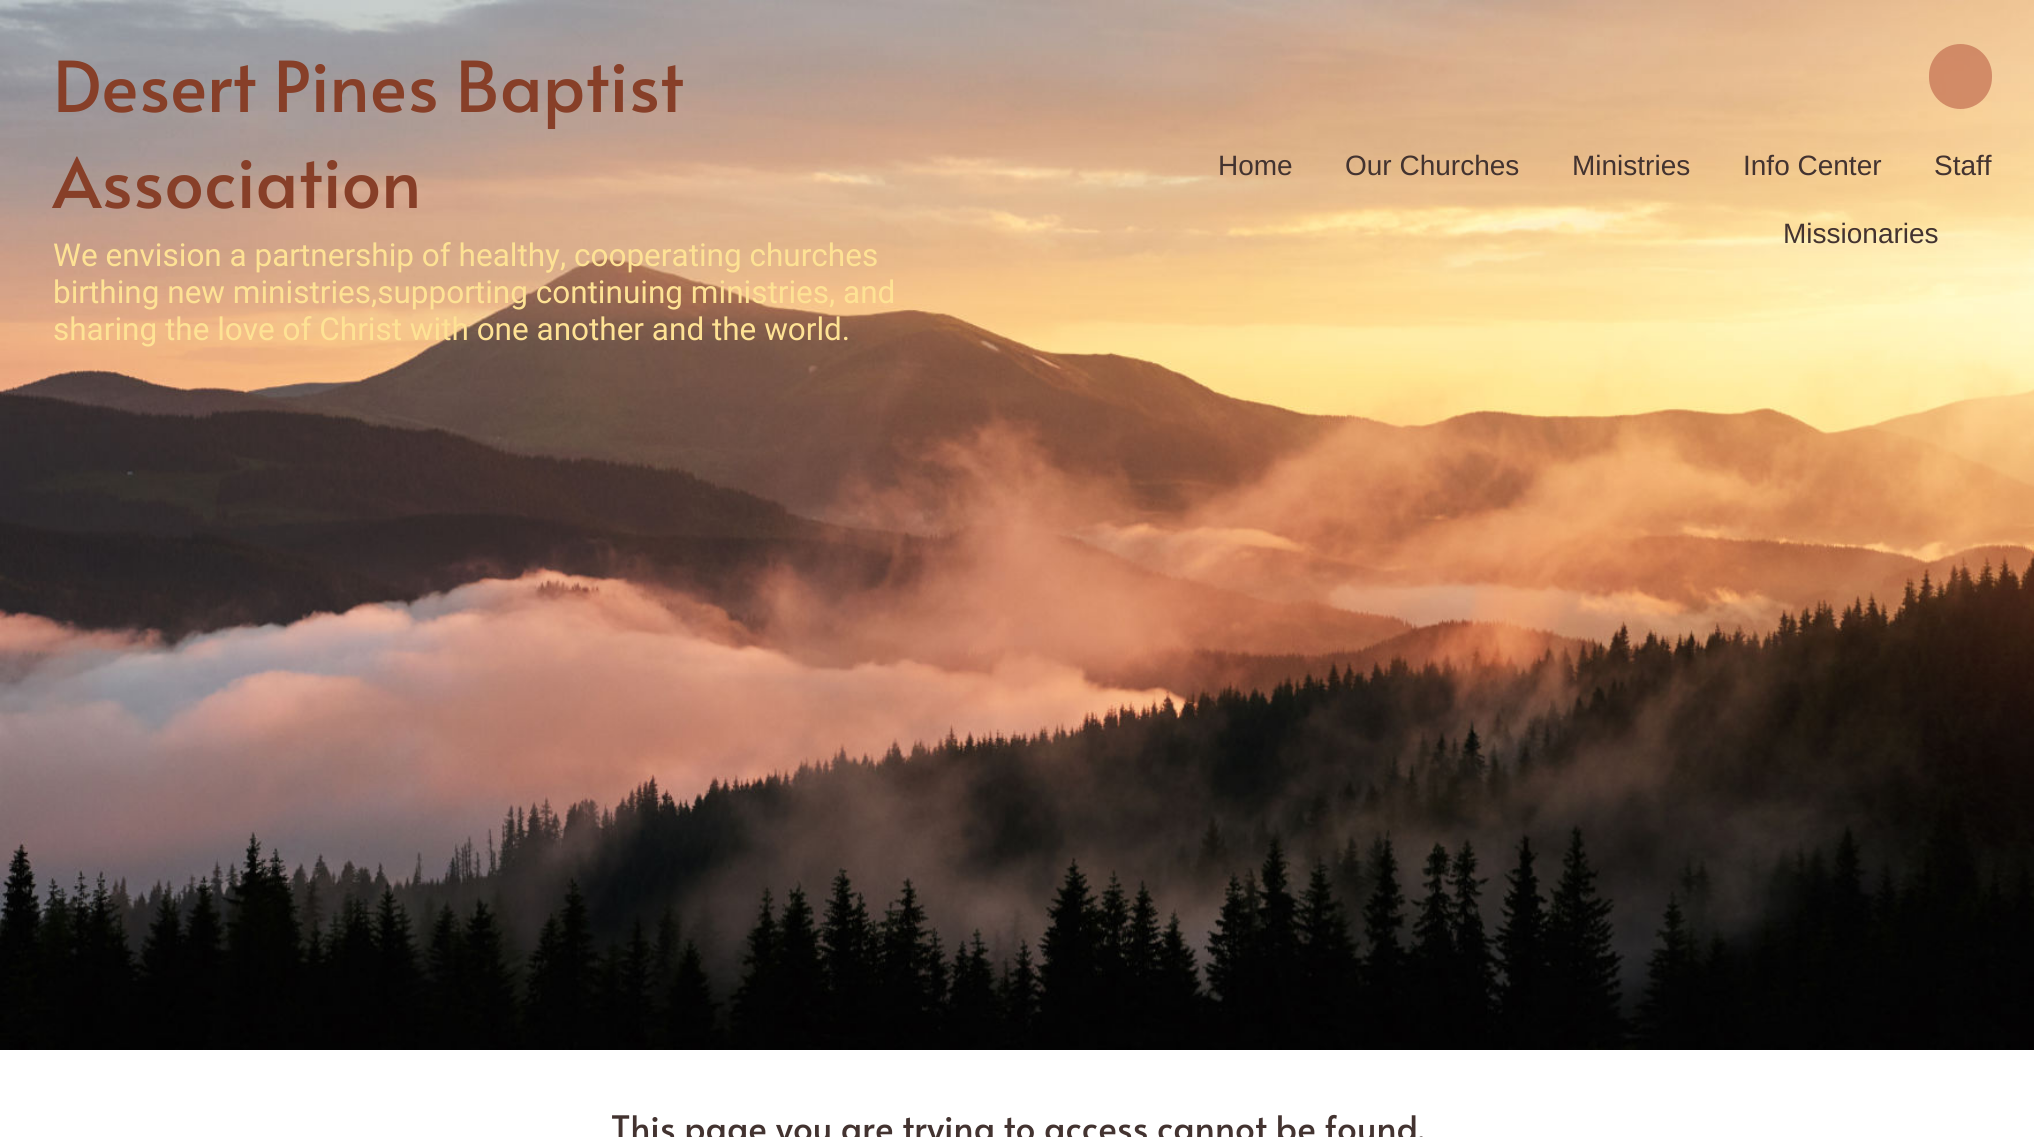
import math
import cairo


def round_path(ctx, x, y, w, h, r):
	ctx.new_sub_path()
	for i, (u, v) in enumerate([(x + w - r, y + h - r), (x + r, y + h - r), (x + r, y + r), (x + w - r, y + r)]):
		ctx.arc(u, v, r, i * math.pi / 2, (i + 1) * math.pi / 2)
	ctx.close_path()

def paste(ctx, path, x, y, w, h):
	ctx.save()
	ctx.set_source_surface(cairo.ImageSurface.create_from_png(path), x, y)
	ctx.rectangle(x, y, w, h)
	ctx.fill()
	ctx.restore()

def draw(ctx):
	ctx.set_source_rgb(1, 1, 1)
	ctx.paint()
	paste(ctx, 'media/1.png', 0, 0, 2034, 1050)
	ctx.select_font_face('Alata')
	ctx.set_font_size(70)
	ctx.set_source_rgb(0.529, 0.247, 0.157)
	ctx.move_to(53, 112)
	ctx.show_text('Desert Pines Baptist')
	ctx.move_to(53, 208)
	ctx.show_text('Association')
	ctx.select_font_face('Roboto')
	ctx.set_font_size(31.5)
	ctx.set_source_rgb(0.996, 0.886, 0.58)
	for x, y, s in [
		(53, 266, 'We envision a partnership of healthy, cooperating churches'),
		(53, 303, 'birthing new ministries,supporting continuing ministries, and'),
		(53, 340, 'sharing the love of Christ with one another and the world.'),
	]:
		ctx.move_to(x, y)
		ctx.show_text(s)
	ctx.set_source_rgba(0.788, 0.482, 0.353, 0.8)
	round_path(ctx, 1929, 44, 63, 65, 31.5)
	ctx.fill()
	ctx.select_font_face('Liberation Sans')
	ctx.set_font_size(28)
	ctx.set_source_rgb(0.263, 0.2, 0.188)
	for x, y, s in [
		(1218, 175, 'Home'),
		(1345, 175, 'Our Churches'),
		(1572, 175, 'Ministries'),
		(1743, 175, 'Info Center'),
		(1934, 175, 'Staff'),
		(1783, 243, 'Missionaries'),
	]:
		ctx.move_to(x, y)
		ctx.show_text(s)
	ctx.select_font_face('Alata')
	ctx.set_font_size(35)
	ctx.move_to(611, 1141)
	ctx.show_text('This page you are trying to access cannot be found.')


surface = cairo.ImageSurface(cairo.FORMAT_RGB24, 2034, 1137)
ctx = cairo.Context(surface)
options = cairo.FontOptions()
options.set_hint_metrics(cairo.HINT_METRICS_OFF)
options.set_hint_style(cairo.HINT_STYLE_NONE)
ctx.set_font_options(options)
ctx.set_miter_limit(4)
draw(ctx)
surface.write_to_png('image.png')
